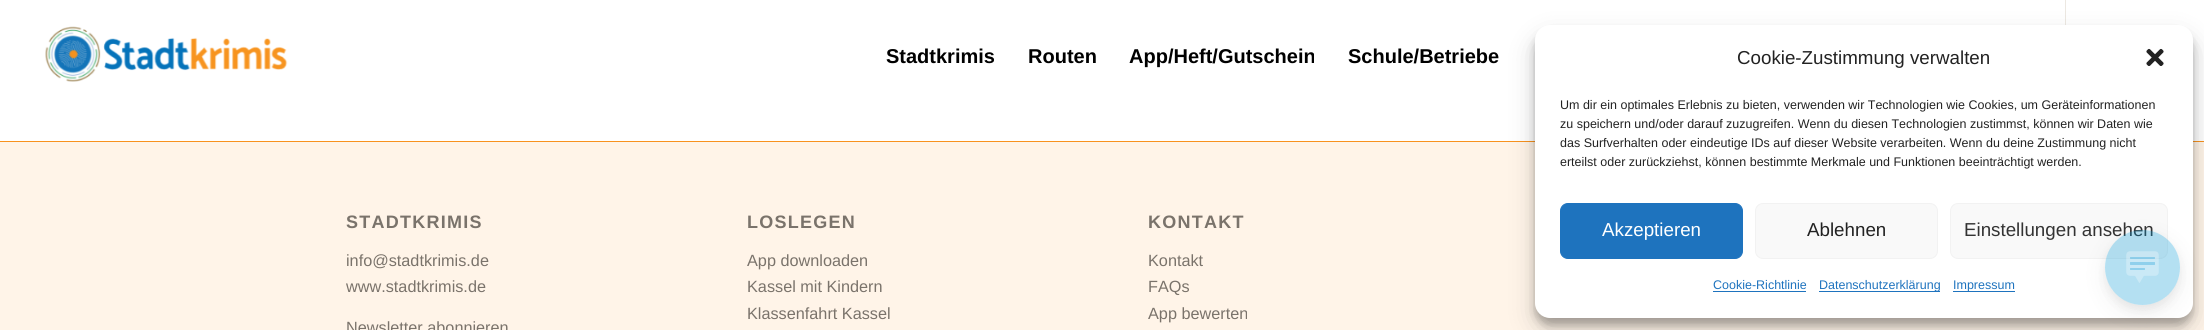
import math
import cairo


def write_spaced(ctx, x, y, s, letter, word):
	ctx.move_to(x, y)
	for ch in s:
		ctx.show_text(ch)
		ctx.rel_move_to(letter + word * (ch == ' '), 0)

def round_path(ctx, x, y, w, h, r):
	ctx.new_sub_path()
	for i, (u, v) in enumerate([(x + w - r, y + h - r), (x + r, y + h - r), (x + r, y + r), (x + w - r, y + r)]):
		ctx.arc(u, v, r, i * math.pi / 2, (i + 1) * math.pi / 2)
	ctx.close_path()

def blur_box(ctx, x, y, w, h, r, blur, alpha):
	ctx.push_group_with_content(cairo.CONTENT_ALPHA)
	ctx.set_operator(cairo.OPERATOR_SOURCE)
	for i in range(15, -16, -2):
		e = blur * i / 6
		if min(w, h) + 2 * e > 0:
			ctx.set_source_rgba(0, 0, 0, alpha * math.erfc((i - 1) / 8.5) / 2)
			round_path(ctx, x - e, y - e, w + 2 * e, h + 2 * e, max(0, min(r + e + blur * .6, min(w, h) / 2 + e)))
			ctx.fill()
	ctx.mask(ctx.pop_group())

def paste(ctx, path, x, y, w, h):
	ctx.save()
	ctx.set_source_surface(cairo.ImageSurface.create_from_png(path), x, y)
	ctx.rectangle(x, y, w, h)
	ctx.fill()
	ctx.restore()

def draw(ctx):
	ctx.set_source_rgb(1, 1, 1)
	ctx.paint()
	paste(ctx, 'media/1.png', 45, 26, 243, 56)
	ctx.set_source_rgb(0.922, 0.91, 0.886)
	ctx.rectangle(2065, 0, 1, 25)
	ctx.fill()
	ctx.select_font_face('Liberation Sans', cairo.FONT_SLANT_NORMAL, cairo.FONT_WEIGHT_BOLD)
	ctx.set_font_size(20)
	ctx.set_source_rgb(0, 0, 0)
	for x, y, s in [
		(886, 63, 'Stadtkrimis'),
		(1028, 63, 'Routen'),
		(1129, 63, 'App/Heft/Gutschein'),
		(1348, 63, 'Schule/Betriebe'),
	]:
		ctx.move_to(x, y)
		ctx.show_text(s)
	ctx.set_source_rgb(1, 0.957, 0.91)
	ctx.rectangle(0, 142, 2204, 188)
	ctx.fill()
	ctx.set_source_rgb(0.969, 0.573, 0.118)
	ctx.rectangle(0, 141, 2204, 1)
	ctx.fill()
	ctx.set_font_size(18)
	ctx.set_source_rgb(0.478, 0.451, 0.42)
	write_spaced(ctx, 346, 228, 'STADTKRIMIS', 1.25, 0)
	ctx.select_font_face('Liberation Sans')
	ctx.set_font_size(16.25)
	for x, y, s in [
		(346, 266, 'info@stadtkrimis.de'),
		(346, 292, 'www.stadtkrimis.de'),
		(346, 333, 'Newsletter abonnieren'),
	]:
		ctx.move_to(x, y)
		ctx.show_text(s)
	ctx.select_font_face('Liberation Sans', cairo.FONT_SLANT_NORMAL, cairo.FONT_WEIGHT_BOLD)
	ctx.set_font_size(18)
	write_spaced(ctx, 747, 228, 'LOSLEGEN', 1.25, 0)
	ctx.select_font_face('Liberation Sans')
	ctx.set_font_size(16.25)
	for x, y, s in [
		(747, 266, 'App downloaden'),
		(747, 292, 'Kassel mit Kindern'),
		(747, 319, 'Klassenfahrt Kassel'),
	]:
		ctx.move_to(x, y)
		ctx.show_text(s)
	ctx.select_font_face('Liberation Sans', cairo.FONT_SLANT_NORMAL, cairo.FONT_WEIGHT_BOLD)
	ctx.set_font_size(18)
	write_spaced(ctx, 1148, 228, 'KONTAKT', 1.25, 0)
	ctx.select_font_face('Liberation Sans')
	ctx.set_font_size(16.25)
	for x, y, s in [
		(1148, 266, 'Kontakt'),
		(1148, 292, 'FAQs'),
		(1148, 319, 'App bewerten'),
	]:
		ctx.move_to(x, y)
		ctx.show_text(s)
	ctx.set_source_rgb(0, 0, 0)
	blur_box(ctx, 1535, 33, 658, 292, 15, 4, 0.23)
	blur_box(ctx, 1535, 38, 658, 292, 15, 12.5, 0.19)
	ctx.set_source_rgb(1, 1, 1)
	round_path(ctx, 1535, 25, 658, 293, 15)
	ctx.fill()
	ctx.set_font_size(18.75)
	ctx.set_source_rgb(0.133, 0.133, 0.133)
	ctx.move_to(1737, 64)
	ctx.show_text('Cookie-Zustimmung verwalten')
	paste(ctx, 'media/2.png', 2146, 48, 18, 18)
	ctx.set_font_size(12.5)
	for x, y, s in [
		(1560, 109, 'Um dir ein optimales Erlebnis zu bieten, verwenden wir Technologien wie Cookies, um Geräteinformationen'),
		(1560, 128, 'zu speichern und/oder darauf zuzugreifen. Wenn du diesen Technologien zustimmst, können wir Daten wie'),
		(1560, 147, 'das Surfverhalten oder eindeutige IDs auf dieser Website verarbeiten. Wenn du deine Zustimmung nicht'),
		(1560, 166, 'erteilst oder zurückziehst, können bestimmte Merkmale und Funktionen beeinträchtigt werden.'),
	]:
		ctx.move_to(x, y)
		ctx.show_text(s)
	ctx.set_source_rgb(0.118, 0.451, 0.745)
	round_path(ctx, 1560.5, 203.5, 182, 55, 7.5)
	ctx.fill_preserve()
	ctx.set_line_width(1)
	ctx.stroke()
	ctx.set_font_size(18.75)
	ctx.set_source_rgb(1, 1, 1)
	ctx.move_to(1602, 236)
	ctx.show_text('Akzeptieren')
	ctx.set_source_rgb(0.976, 0.976, 0.976)
	round_path(ctx, 1755.5, 203.5, 182, 55, 7.5)
	ctx.fill_preserve()
	ctx.set_source_rgb(0.949, 0.949, 0.949)
	ctx.stroke()
	ctx.set_source_rgb(0.133, 0.133, 0.133)
	ctx.move_to(1807, 236)
	ctx.show_text('Ablehnen')
	ctx.set_source_rgb(0.976, 0.976, 0.976)
	round_path(ctx, 1950.5, 203.5, 217, 55, 7.5)
	ctx.fill_preserve()
	ctx.set_source_rgb(0.949, 0.949, 0.949)
	ctx.stroke()
	ctx.set_source_rgb(0.2, 0.2, 0.2)
	ctx.move_to(1964, 236)
	ctx.show_text('Einstellungen ansehen')
	ctx.set_font_size(12.5)
	ctx.set_source_rgb(0.118, 0.451, 0.745)
	ctx.move_to(1713, 289)
	ctx.show_text('Cookie-Richtlinie')
	ctx.rectangle(1713, 291, 93, 1)
	ctx.fill()
	ctx.rectangle(1819, 291, 121, 1)
	ctx.fill()
	ctx.move_to(1819, 289)
	ctx.show_text('Datenschutzerklärung')
	ctx.rectangle(1953, 291, 62, 1)
	ctx.fill()
	ctx.move_to(1953, 289)
	ctx.show_text('Impressum')
	ctx.save()
	ctx.set_fill_rule(cairo.FILL_RULE_EVEN_ODD)
	ctx.new_path()
	ctx.move_to(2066, 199)
	ctx.line_to(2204, 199)
	ctx.line_to(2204, 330)
	ctx.line_to(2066, 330)
	ctx.close_path()
	ctx.move_to(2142.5, 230)
	ctx.curve_to(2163, 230, 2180, 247, 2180, 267.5)
	ctx.curve_to(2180, 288, 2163, 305, 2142.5, 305)
	ctx.curve_to(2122, 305, 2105, 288, 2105, 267.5)
	ctx.curve_to(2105, 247, 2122, 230, 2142.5, 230)
	ctx.close_path()
	ctx.clip()
	ctx.set_source_rgb(0, 0, 0)
	blur_box(ctx, 2105, 238, 75, 75, 37.5, 12.5, 0.06)
	ctx.restore()
	ctx.save()
	ctx.set_fill_rule(cairo.FILL_RULE_EVEN_ODD)
	ctx.new_path()
	ctx.move_to(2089, 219)
	ctx.line_to(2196, 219)
	ctx.line_to(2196, 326)
	ctx.line_to(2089, 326)
	ctx.close_path()
	ctx.move_to(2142.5, 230)
	ctx.curve_to(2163, 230, 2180, 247, 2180, 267.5)
	ctx.curve_to(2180, 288, 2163, 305, 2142.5, 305)
	ctx.curve_to(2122, 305, 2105, 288, 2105, 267.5)
	ctx.curve_to(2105, 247, 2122, 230, 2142.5, 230)
	ctx.close_path()
	ctx.clip()
	ctx.set_source_rgb(0, 0, 0)
	blur_box(ctx, 2105, 235, 75, 75, 37.5, 5, 0.06)
	ctx.restore()
	ctx.set_source_rgba(0.02, 0.588, 0.831, 0.3)
	ctx.arc(2142.5, 267.5, 37.5, 0, 2 * math.pi)
	ctx.fill()
	paste(ctx, 'media/3.png', 2126, 251, 33, 32)


surface = cairo.ImageSurface(cairo.FORMAT_RGB24, 2204, 330)
ctx = cairo.Context(surface)
options = cairo.FontOptions()
options.set_hint_metrics(cairo.HINT_METRICS_OFF)
options.set_hint_style(cairo.HINT_STYLE_NONE)
ctx.set_font_options(options)
ctx.set_miter_limit(4)
draw(ctx)
surface.write_to_png('image.png')
